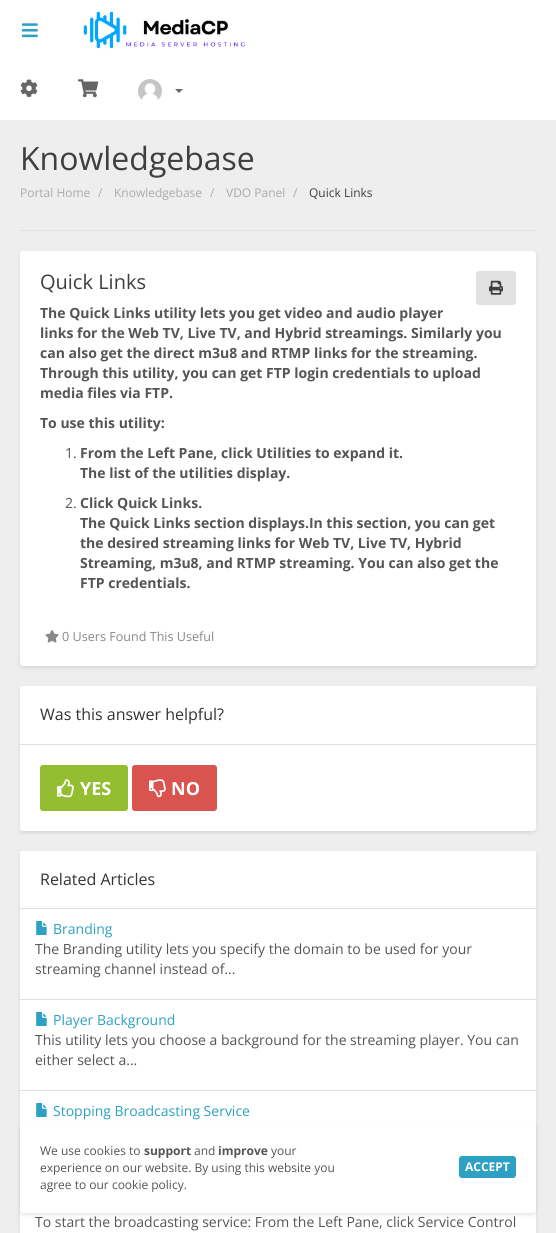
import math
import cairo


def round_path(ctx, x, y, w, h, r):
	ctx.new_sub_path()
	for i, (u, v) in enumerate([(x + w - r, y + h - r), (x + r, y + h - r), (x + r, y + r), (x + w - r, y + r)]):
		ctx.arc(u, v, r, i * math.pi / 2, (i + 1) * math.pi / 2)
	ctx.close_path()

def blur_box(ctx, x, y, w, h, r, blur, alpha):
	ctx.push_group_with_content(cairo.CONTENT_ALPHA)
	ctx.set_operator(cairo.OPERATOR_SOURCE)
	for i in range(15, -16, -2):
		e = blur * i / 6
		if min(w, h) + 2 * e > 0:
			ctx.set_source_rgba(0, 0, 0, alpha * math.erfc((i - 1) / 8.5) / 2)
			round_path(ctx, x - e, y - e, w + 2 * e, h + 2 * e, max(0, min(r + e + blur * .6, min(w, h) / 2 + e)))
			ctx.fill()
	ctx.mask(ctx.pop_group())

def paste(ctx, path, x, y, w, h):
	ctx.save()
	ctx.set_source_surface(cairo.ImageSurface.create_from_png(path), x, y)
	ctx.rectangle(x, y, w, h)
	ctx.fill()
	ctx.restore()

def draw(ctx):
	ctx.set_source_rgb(0.933, 0.933, 0.933)
	ctx.paint()
	ctx.set_source_rgb(1, 1, 1)
	ctx.rectangle(0, 0, 556, 120)
	ctx.fill()
	paste(ctx, 'media/1.png', 22, 23, 16, 15)
	paste(ctx, 'media/2.png', 83, 11, 162, 38)
	paste(ctx, 'media/3.png', 20, 79, 18, 18)
	paste(ctx, 'media/4.png', 78, 79, 21, 19)
	paste(ctx, 'media/5.png', 138, 79, 24, 21)
	ctx.set_source_rgb(0.4, 0.4, 0.4)
	ctx.new_path()
	ctx.move_to(175, 89)
	ctx.line_to(183, 89)
	ctx.line_to(179, 93)
	ctx.close_path()
	ctx.fill()
	ctx.set_source_rgb(0.882, 0.882, 0.882)
	ctx.rectangle(20, 230, 516, 1)
	ctx.fill()
	ctx.select_font_face('Open Sans')
	ctx.set_font_size(32)
	ctx.set_source_rgb(0.247, 0.247, 0.247)
	ctx.move_to(20, 170)
	ctx.show_text('Knowledgebase')
	ctx.set_font_size(12)
	ctx.set_source_rgb(0.667, 0.667, 0.667)
	for x, y, s in [
		(20, 197, 'Portal Home'),
		(98, 197, '/'),
		(114, 197, 'Knowledgebase'),
		(210, 197, '/'),
		(226, 197, 'VDO Panel'),
		(293, 197, '/'),
	]:
		ctx.move_to(x, y)
		ctx.show_text(s)
	ctx.set_source_rgb(0.247, 0.247, 0.247)
	ctx.move_to(309, 197)
	ctx.show_text('Quick Links')
	ctx.set_source_rgb(0, 0, 0)
	blur_box(ctx, 20, 253, 516, 415, 3, 2, 0.1)
	ctx.set_source_rgb(1, 1, 1)
	round_path(ctx, 20, 251, 516, 415, 3)
	ctx.fill()
	ctx.set_font_size(20)
	ctx.set_source_rgb(0.247, 0.247, 0.247)
	ctx.move_to(40, 289)
	ctx.show_text('Quick Links')
	ctx.set_source_rgb(0.882, 0.882, 0.882)
	round_path(ctx, 476.5, 271.5, 39, 33, 2.5)
	ctx.fill_preserve()
	ctx.set_line_width(1)
	ctx.stroke()
	paste(ctx, 'media/6.png', 489, 280, 14, 15)
	ctx.select_font_face('Open Sans', cairo.FONT_SLANT_NORMAL, cairo.FONT_WEIGHT_BOLD)
	ctx.set_font_size(14)
	ctx.set_source_rgb(0.333, 0.333, 0.333)
	for x, y, s in [
		(40, 318, 'The Quick Links utility lets you get video and audio player'),
		(40, 338, 'links for the Web TV, Live TV, and Hybrid streamings. Similarly you'),
		(40, 358, 'can also get the direct m3u8 and RTMP links for the streaming.'),
		(40, 378, 'Through this utility, you can get FTP login credentials to upload'),
		(40, 398, 'media files via FTP.'),
		(40, 428, 'To use this utility:'),
	]:
		ctx.move_to(x, y)
		ctx.show_text(s)
	ctx.select_font_face('Open Sans')
	ctx.move_to(65, 458)
	ctx.show_text('1.')
	ctx.select_font_face('Open Sans', cairo.FONT_SLANT_NORMAL, cairo.FONT_WEIGHT_BOLD)
	ctx.move_to(80, 458)
	ctx.show_text('From the Left Pane, click Utilities to expand it.')
	ctx.move_to(80, 478)
	ctx.show_text('The list of the utilities display.')
	ctx.select_font_face('Open Sans')
	ctx.move_to(65, 508)
	ctx.show_text('2.')
	ctx.select_font_face('Open Sans', cairo.FONT_SLANT_NORMAL, cairo.FONT_WEIGHT_BOLD)
	for x, y, s in [
		(80, 508, 'Click Quick Links.'),
		(80, 528, 'The Quick Links section displays.In this section, you can get'),
		(80, 548, 'the desired streaming links for Web TV, Live TV, Hybrid'),
		(80, 568, 'Streaming, m3u8, and RTMP streaming. You can also get the'),
		(80, 588, 'FTP credentials.'),
	]:
		ctx.move_to(x, y)
		ctx.show_text(s)
	paste(ctx, 'media/7.png', 45, 630, 14, 13)
	ctx.select_font_face('Open Sans')
	ctx.set_font_size(12.6)
	ctx.set_source_rgb(0.533, 0.533, 0.533)
	ctx.move_to(62, 641)
	ctx.show_text('0 Users Found This Useful')
	ctx.set_source_rgb(0, 0, 0)
	blur_box(ctx, 20, 688, 516, 145, 3, 2, 0.1)
	ctx.set_source_rgb(1, 1, 1)
	round_path(ctx, 20, 686, 516, 145, 3)
	ctx.fill()
	ctx.new_path()
	ctx.move_to(22, 686)
	ctx.line_to(534, 686)
	ctx.curve_to(535, 686, 536, 687, 536, 688)
	ctx.line_to(536, 745)
	ctx.line_to(20, 745)
	ctx.line_to(20, 688)
	ctx.curve_to(20, 687, 21, 686, 22, 686)
	ctx.close_path()
	ctx.fill()
	ctx.set_source_rgb(0.882, 0.882, 0.882)
	ctx.rectangle(20, 744, 516, 1)
	ctx.fill()
	ctx.set_font_size(16)
	ctx.set_source_rgb(0.2, 0.2, 0.2)
	ctx.move_to(40, 720)
	ctx.show_text('Was this answer helpful?')
	ctx.set_source_rgb(0.58, 0.741, 0.192)
	round_path(ctx, 40.5, 765.5, 87, 45, 2.5)
	ctx.fill_preserve()
	ctx.stroke()
	paste(ctx, 'media/8.png', 57, 779, 17, 19)
	ctx.select_font_face('Open Sans', cairo.FONT_SLANT_NORMAL, cairo.FONT_WEIGHT_BOLD)
	ctx.set_font_size(18)
	ctx.set_source_rgb(1, 1, 1)
	ctx.move_to(80, 795)
	ctx.show_text('YES')
	ctx.set_source_rgb(0.851, 0.325, 0.31)
	round_path(ctx, 132.5, 765.5, 84, 45, 2.5)
	ctx.fill_preserve()
	ctx.stroke()
	paste(ctx, 'media/9.png', 149, 779, 17, 19)
	ctx.set_source_rgb(1, 1, 1)
	ctx.move_to(171, 795)
	ctx.show_text('NO')
	ctx.set_source_rgb(0, 0, 0)
	blur_box(ctx, 20, 853, 516, 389, 3, 2, 0.1)
	ctx.set_source_rgb(1, 1, 1)
	round_path(ctx, 20, 851, 516, 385, 3)
	ctx.fill()
	ctx.new_path()
	ctx.move_to(22, 851)
	ctx.line_to(534, 851)
	ctx.curve_to(535, 851, 536, 852, 536, 853)
	ctx.line_to(536, 909)
	ctx.line_to(20, 909)
	ctx.line_to(20, 853)
	ctx.curve_to(20, 852, 21, 851, 22, 851)
	ctx.close_path()
	ctx.fill()
	ctx.set_source_rgb(0.882, 0.882, 0.882)
	ctx.rectangle(20, 908, 516, 1)
	ctx.fill()
	ctx.select_font_face('Open Sans')
	ctx.set_font_size(16)
	ctx.set_source_rgb(0.2, 0.2, 0.2)
	ctx.move_to(40, 885)
	ctx.show_text('Related Articles')
	ctx.set_source_rgb(0.882, 0.882, 0.882)
	ctx.rectangle(20, 999, 516, 1)
	ctx.fill()
	paste(ctx, 'media/10.png', 36, 921, 11, 14)
	ctx.set_font_size(14)
	ctx.set_source_rgb(0.173, 0.631, 0.765)
	ctx.move_to(53, 934)
	ctx.show_text('Branding')
	ctx.set_source_rgb(0.333, 0.333, 0.333)
	ctx.move_to(35, 954)
	ctx.show_text('The Branding utility lets you specify the domain to be used for your')
	ctx.move_to(35, 974)
	ctx.show_text('streaming channel instead of...')
	ctx.set_source_rgb(0.882, 0.882, 0.882)
	ctx.rectangle(20, 1090, 516, 1)
	ctx.fill()
	paste(ctx, 'media/10.png', 36, 1012, 11, 14)
	ctx.set_source_rgb(0.173, 0.631, 0.765)
	ctx.move_to(53, 1025)
	ctx.show_text('Player Background')
	ctx.set_source_rgb(0.333, 0.333, 0.333)
	ctx.move_to(35, 1045)
	ctx.show_text('This utility lets you choose a background for the streaming player. You can')
	ctx.move_to(35, 1065)
	ctx.show_text('either select a...')
	paste(ctx, 'media/10.png', 36, 1103, 11, 14)
	ctx.set_source_rgb(0.173, 0.631, 0.765)
	ctx.move_to(53, 1116)
	ctx.show_text('Stopping Broadcasting Service')
	ctx.set_source_rgb(0.333, 0.333, 0.333)
	ctx.move_to(35, 1227)
	ctx.show_text('To start the broadcasting service: From the Left Pane, click Service Control')
	ctx.set_source_rgb(0, 0, 0)
	blur_box(ctx, 20, 1124, 516, 91, 3, 2, 0.1)
	ctx.set_source_rgb(1, 1, 1)
	round_path(ctx, 20, 1122, 516, 91, 3)
	ctx.fill()
	ctx.set_font_size(12)
	ctx.set_source_rgb(0.333, 0.333, 0.333)
	ctx.move_to(40, 1155)
	ctx.show_text('We use cookies to')
	ctx.select_font_face('Open Sans', cairo.FONT_SLANT_NORMAL, cairo.FONT_WEIGHT_BOLD)
	ctx.move_to(144, 1155)
	ctx.show_text('support')
	ctx.select_font_face('Open Sans')
	ctx.move_to(194, 1155)
	ctx.show_text('and')
	ctx.select_font_face('Open Sans', cairo.FONT_SLANT_NORMAL, cairo.FONT_WEIGHT_BOLD)
	ctx.move_to(218, 1155)
	ctx.show_text('improve')
	ctx.select_font_face('Open Sans')
	for x, y, s in [
		(271, 1155, 'your'),
		(40, 1172, 'experience on our website. By using this website you'),
		(40, 1189, 'agree to our cookie policy.'),
	]:
		ctx.move_to(x, y)
		ctx.show_text(s)
	ctx.set_source_rgb(0.173, 0.631, 0.765)
	round_path(ctx, 459.5, 1156.5, 56, 21, 2.5)
	ctx.fill_preserve()
	ctx.stroke()
	ctx.select_font_face('Open Sans', cairo.FONT_SLANT_NORMAL, cairo.FONT_WEIGHT_BOLD)
	ctx.set_source_rgb(1, 1, 1)
	ctx.move_to(465, 1171)
	ctx.show_text('ACCEPT')


surface = cairo.ImageSurface(cairo.FORMAT_RGB24, 556, 1233)
ctx = cairo.Context(surface)
options = cairo.FontOptions()
options.set_hint_metrics(cairo.HINT_METRICS_OFF)
options.set_hint_style(cairo.HINT_STYLE_NONE)
ctx.set_font_options(options)
ctx.set_miter_limit(4)
draw(ctx)
surface.write_to_png('image.png')
